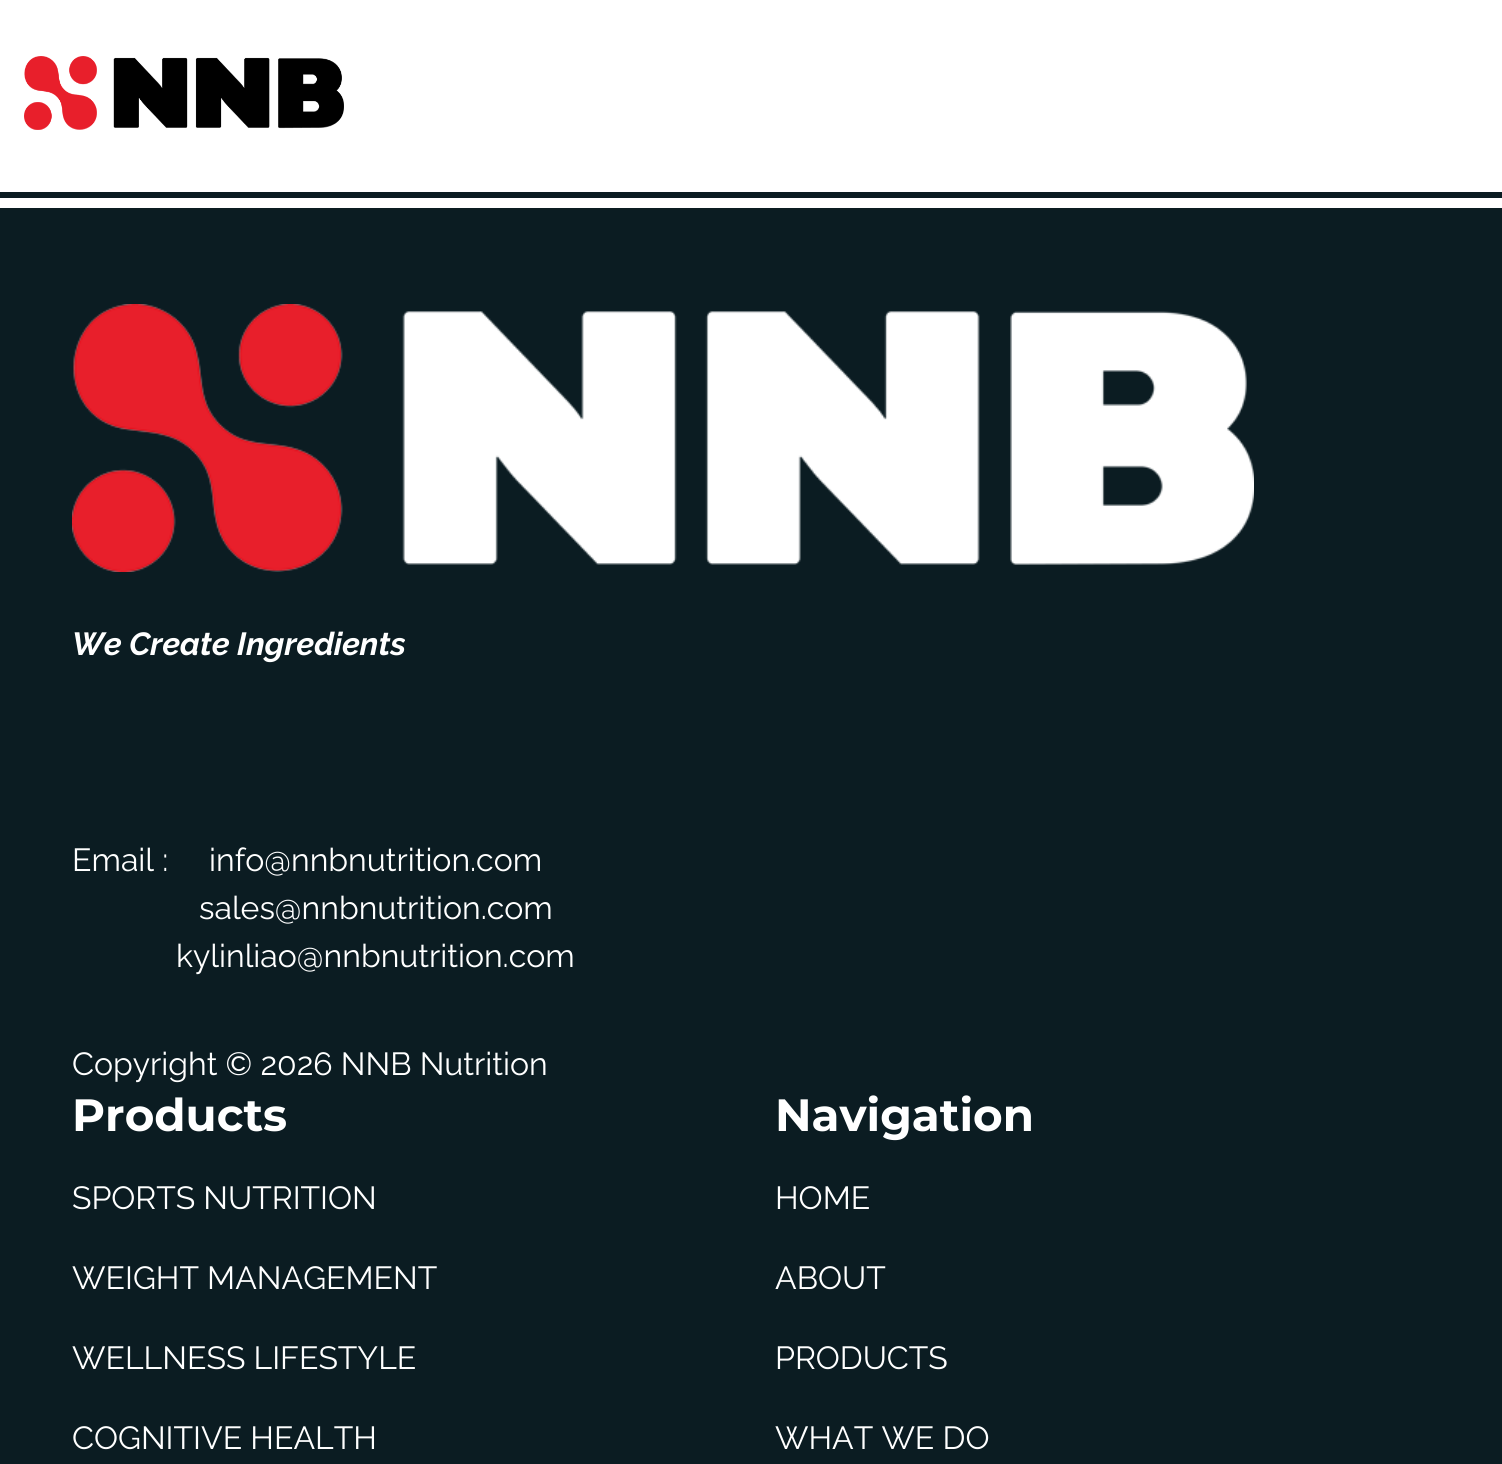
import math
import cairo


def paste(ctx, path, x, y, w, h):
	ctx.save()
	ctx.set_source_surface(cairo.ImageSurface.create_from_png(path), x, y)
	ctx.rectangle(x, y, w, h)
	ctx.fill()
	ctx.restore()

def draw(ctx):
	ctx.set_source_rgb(1, 1, 1)
	ctx.paint()
	ctx.set_source_rgb(0.043, 0.11, 0.133)
	ctx.rectangle(0, 192, 1502, 6)
	ctx.fill()
	paste(ctx, 'media/1.png', 24, 56, 320, 74)
	ctx.rectangle(0, 208, 1502, 1256)
	ctx.fill()
	paste(ctx, 'media/2.png', 72, 304, 1182, 268)
	ctx.select_font_face('Raleway', cairo.FONT_SLANT_ITALIC, cairo.FONT_WEIGHT_BOLD)
	ctx.set_font_size(32)
	ctx.set_source_rgb(1, 1, 1)
	ctx.move_to(72, 655)
	ctx.show_text('We Create Ingredients')
	ctx.select_font_face('Raleway')
	for x, y, s in [
		(72, 871, 'Email :'),
		(209, 871, 'info@nnbnutrition.com'),
		(199, 919, 'sales@nnbnutrition.com'),
		(176, 967, 'kylinliao@nnbnutrition.com'),
		(72, 1075, 'Copyright © 2026 NNB Nutrition'),
	]:
		ctx.move_to(x, y)
		ctx.show_text(s)
	ctx.select_font_face('Montserrat', cairo.FONT_SLANT_NORMAL, cairo.FONT_WEIGHT_BOLD)
	ctx.set_font_size(45.25)
	ctx.move_to(72, 1131)
	ctx.show_text('Products')
	ctx.select_font_face('Raleway')
	ctx.set_font_size(32)
	for x, y, s in [
		(72, 1209, 'SPORTS NUTRITION'),
		(72, 1289, 'WEIGHT MANAGEMENT'),
		(72, 1369, 'WELLNESS LIFESTYLE'),
		(72, 1449, 'COGNITIVE HEALTH'),
	]:
		ctx.move_to(x, y)
		ctx.show_text(s)
	ctx.select_font_face('Montserrat', cairo.FONT_SLANT_NORMAL, cairo.FONT_WEIGHT_BOLD)
	ctx.set_font_size(45.25)
	ctx.move_to(775, 1131)
	ctx.show_text('Navigation')
	ctx.select_font_face('Raleway')
	ctx.set_font_size(32)
	for x, y, s in [
		(775, 1209, 'HOME'),
		(775, 1289, 'ABOUT'),
		(775, 1369, 'PRODUCTS'),
		(775, 1449, 'WHAT WE DO'),
	]:
		ctx.move_to(x, y)
		ctx.show_text(s)


surface = cairo.ImageSurface(cairo.FORMAT_RGB24, 1502, 1464)
ctx = cairo.Context(surface)
options = cairo.FontOptions()
options.set_hint_metrics(cairo.HINT_METRICS_OFF)
options.set_hint_style(cairo.HINT_STYLE_NONE)
ctx.set_font_options(options)
ctx.set_miter_limit(4)
draw(ctx)
surface.write_to_png('image.png')
